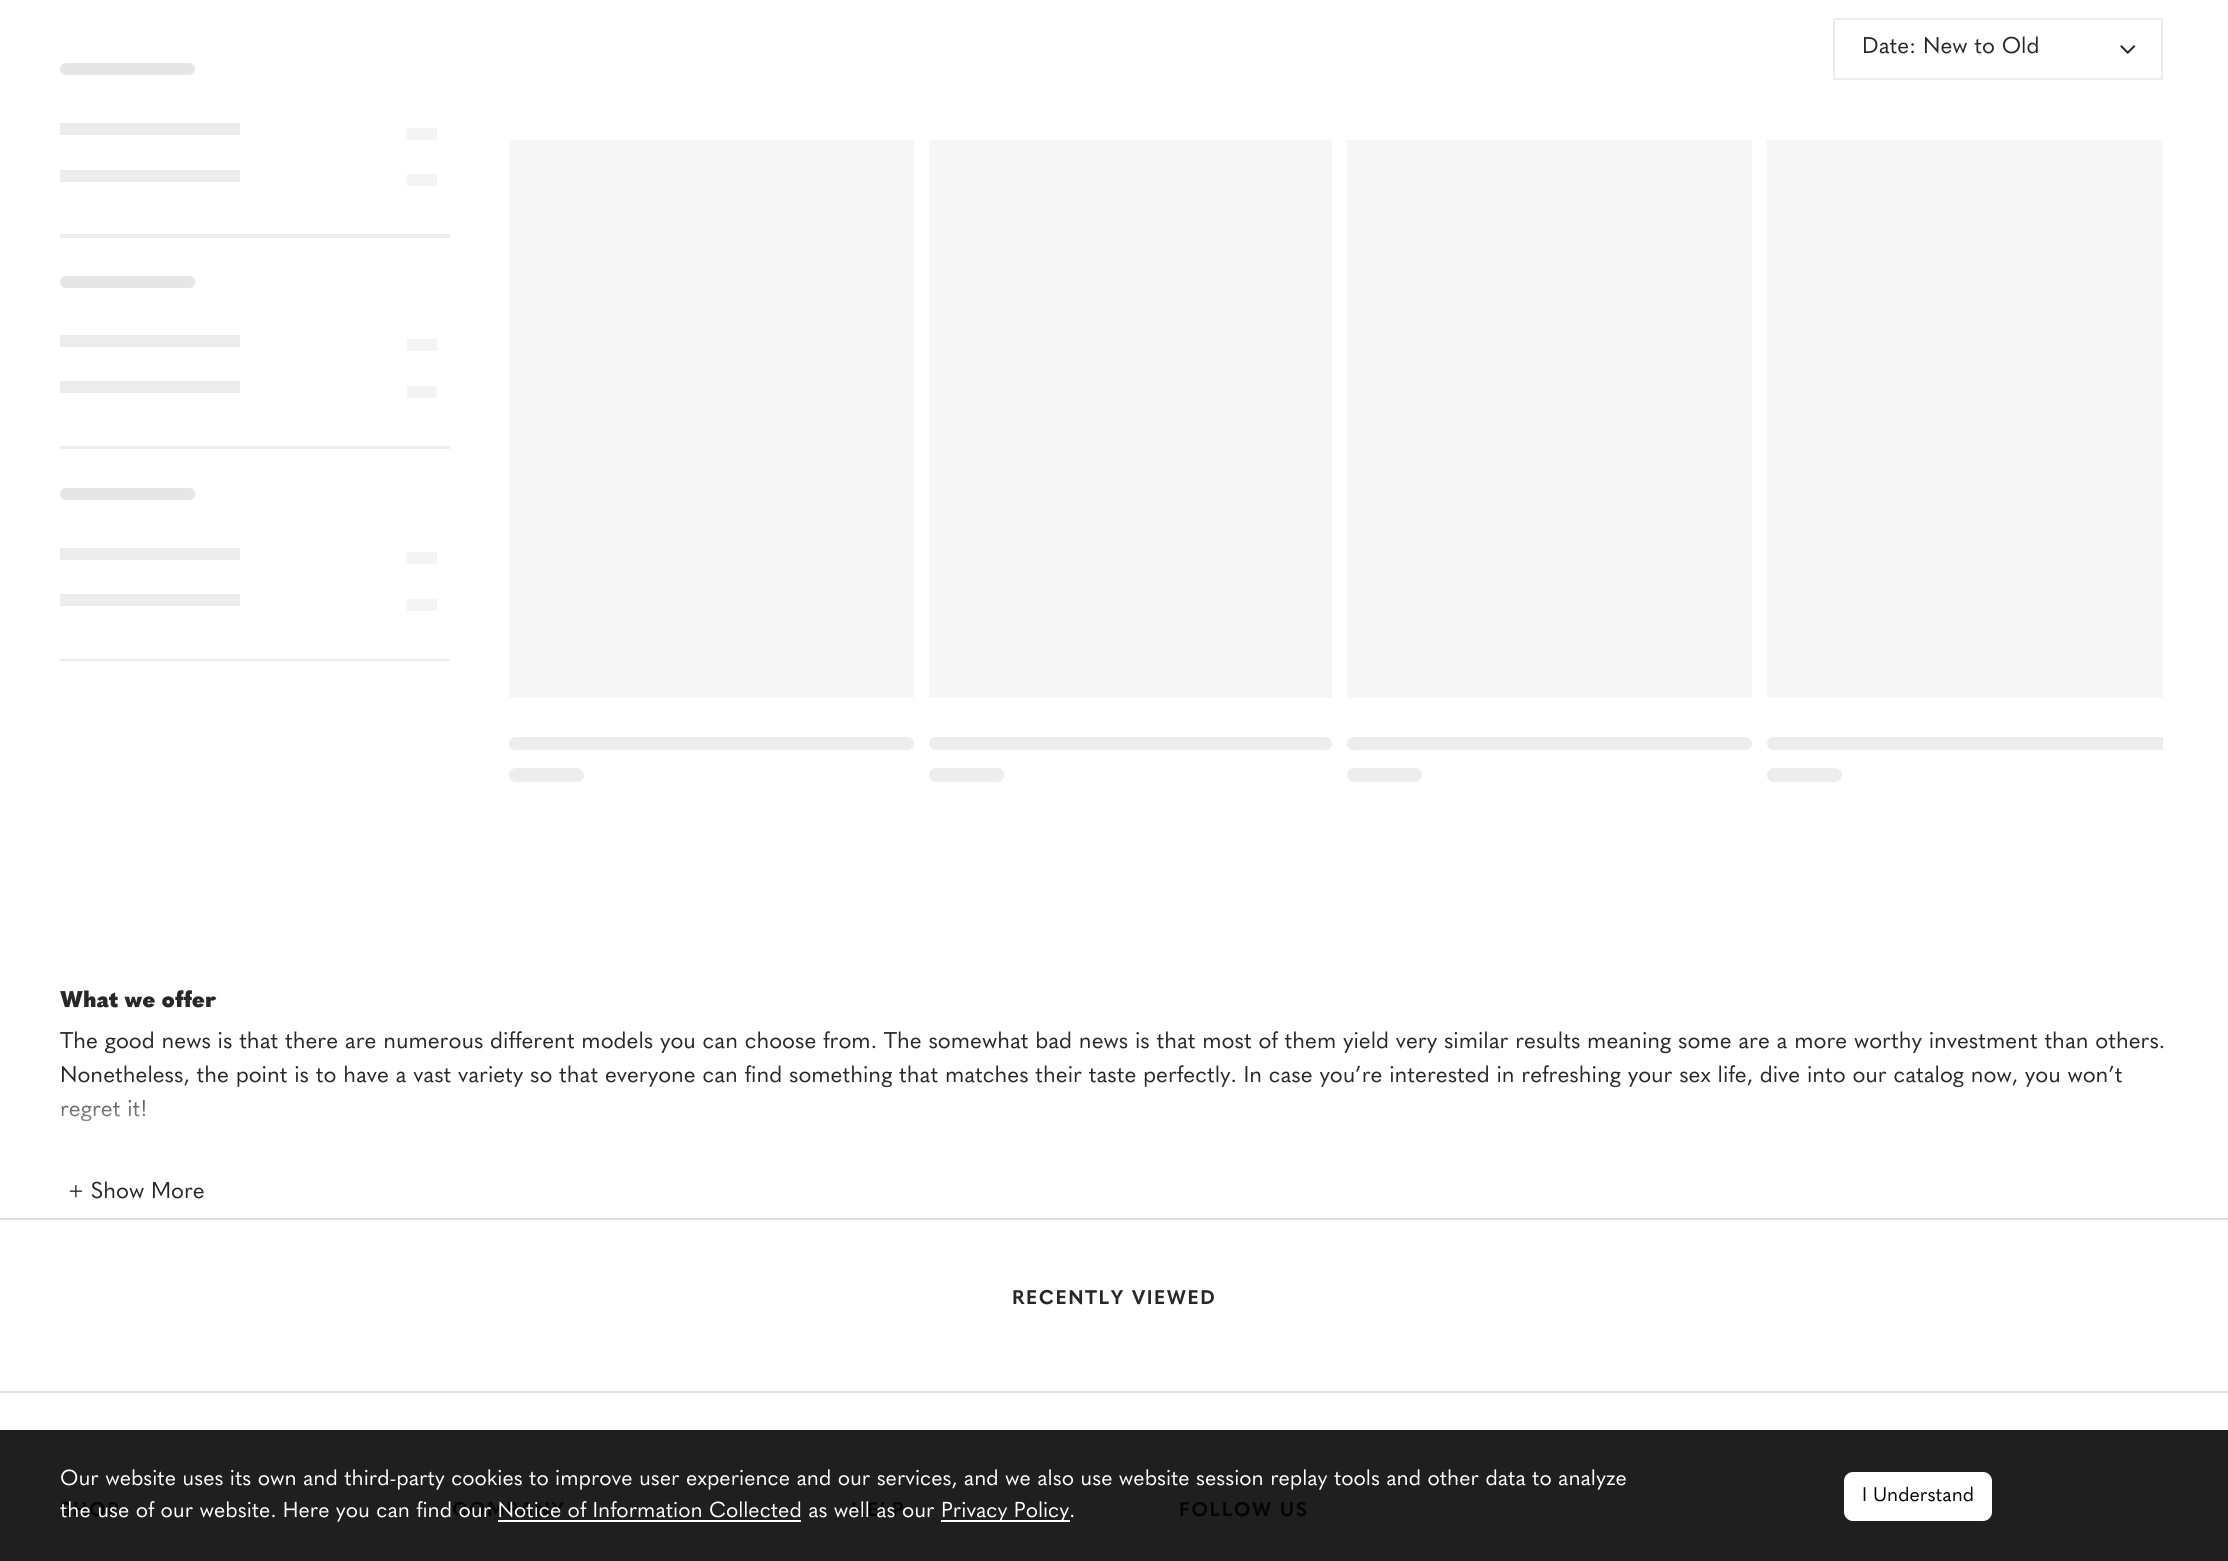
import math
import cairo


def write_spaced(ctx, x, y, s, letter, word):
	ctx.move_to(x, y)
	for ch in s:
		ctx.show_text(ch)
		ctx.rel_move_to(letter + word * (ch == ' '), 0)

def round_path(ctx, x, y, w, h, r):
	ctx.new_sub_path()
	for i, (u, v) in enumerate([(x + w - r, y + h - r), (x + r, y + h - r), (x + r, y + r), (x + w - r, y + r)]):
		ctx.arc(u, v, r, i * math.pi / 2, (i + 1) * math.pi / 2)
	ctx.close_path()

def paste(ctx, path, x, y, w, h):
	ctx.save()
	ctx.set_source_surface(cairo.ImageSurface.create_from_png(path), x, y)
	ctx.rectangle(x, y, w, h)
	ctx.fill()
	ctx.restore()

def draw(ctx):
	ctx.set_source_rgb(1, 1, 1)
	ctx.paint()
	ctx.set_source_rgb(0.122, 0.122, 0.122)
	ctx.rectangle(0, 1430, 2228, 131)
	ctx.fill()
	ctx.rectangle(1834, 19, 328, 60)
	ctx.set_source_rgb(0.929, 0.929, 0.929)
	ctx.stroke()
	ctx.select_font_face('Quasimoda')
	ctx.set_font_size(22.5)
	ctx.set_source_rgb(0.157, 0.157, 0.157)
	ctx.move_to(1862, 53)
	ctx.show_text('Date: New to Old')
	paste(ctx, 'media/1.png', 2120, 45, 16, 9)
	ctx.set_source_rgb(0.961, 0.961, 0.961)
	ctx.rectangle(509, 140, 405, 558)
	ctx.fill()
	ctx.set_source_rgb(0.929, 0.929, 0.929)
	round_path(ctx, 509, 737, 405, 13, 6.5)
	ctx.fill()
	round_path(ctx, 509, 768, 75, 14, 7)
	ctx.fill()
	ctx.set_source_rgb(0.961, 0.961, 0.961)
	ctx.rectangle(929, 140, 403, 558)
	ctx.fill()
	ctx.set_source_rgb(0.929, 0.929, 0.929)
	round_path(ctx, 929, 737, 403, 13, 6.5)
	ctx.fill()
	round_path(ctx, 929, 768, 75, 14, 7)
	ctx.fill()
	ctx.set_source_rgb(0.961, 0.961, 0.961)
	ctx.rectangle(1347, 140, 405, 558)
	ctx.fill()
	ctx.set_source_rgb(0.929, 0.929, 0.929)
	round_path(ctx, 1347, 737, 405, 13, 6.5)
	ctx.fill()
	round_path(ctx, 1347, 768, 75, 14, 7)
	ctx.fill()
	ctx.set_source_rgb(0.961, 0.961, 0.961)
	ctx.rectangle(1767, 140, 396, 558)
	ctx.fill()
	ctx.set_source_rgb(0.929, 0.929, 0.929)
	ctx.new_path()
	ctx.move_to(1773.5, 737)
	ctx.line_to(2163, 737)
	ctx.line_to(2163, 750)
	ctx.line_to(1773.5, 750)
	ctx.curve_to(1770, 750, 1767, 747, 1767, 743.5)
	ctx.curve_to(1767, 740, 1770, 737, 1773.5, 737)
	ctx.close_path()
	ctx.fill()
	round_path(ctx, 1767, 768, 75, 14, 7)
	ctx.fill()
	ctx.rectangle(60, 234, 390, 4)
	ctx.fill()
	ctx.set_source_rgb(0.902, 0.902, 0.902)
	round_path(ctx, 60, 63, 135, 12, 6)
	ctx.fill()
	ctx.set_source_rgb(0.925, 0.925, 0.925)
	ctx.rectangle(60, 123, 180, 12)
	ctx.fill()
	ctx.set_source_rgb(0.957, 0.957, 0.957)
	ctx.rectangle(407, 128, 30, 12)
	ctx.fill()
	ctx.set_source_rgb(0.925, 0.925, 0.925)
	ctx.rectangle(60, 170, 180, 12)
	ctx.fill()
	ctx.set_source_rgb(0.957, 0.957, 0.957)
	ctx.rectangle(407, 174, 30, 12)
	ctx.fill()
	ctx.set_source_rgb(0.929, 0.929, 0.929)
	ctx.rectangle(60, 446, 390, 3)
	ctx.fill()
	ctx.set_source_rgb(0.902, 0.902, 0.902)
	round_path(ctx, 60, 276, 135, 12, 6)
	ctx.fill()
	ctx.set_source_rgb(0.925, 0.925, 0.925)
	ctx.rectangle(60, 335, 180, 12)
	ctx.fill()
	ctx.set_source_rgb(0.957, 0.957, 0.957)
	ctx.rectangle(407, 339, 30, 12)
	ctx.fill()
	ctx.set_source_rgb(0.925, 0.925, 0.925)
	ctx.rectangle(60, 381, 180, 12)
	ctx.fill()
	ctx.set_source_rgb(0.957, 0.957, 0.957)
	ctx.rectangle(407, 386, 30, 12)
	ctx.fill()
	ctx.set_source_rgb(0.929, 0.929, 0.929)
	ctx.rectangle(60, 659, 390, 2)
	ctx.fill()
	ctx.set_source_rgb(0.902, 0.902, 0.902)
	round_path(ctx, 60, 488, 135, 12, 6)
	ctx.fill()
	ctx.set_source_rgb(0.925, 0.925, 0.925)
	ctx.rectangle(60, 548, 180, 12)
	ctx.fill()
	ctx.set_source_rgb(0.957, 0.957, 0.957)
	ctx.rectangle(407, 552, 30, 12)
	ctx.fill()
	ctx.set_source_rgb(0.925, 0.925, 0.925)
	ctx.rectangle(60, 594, 180, 12)
	ctx.fill()
	ctx.set_source_rgb(0.957, 0.957, 0.957)
	ctx.rectangle(407, 599, 30, 12)
	ctx.fill()
	ctx.select_font_face('Quasimoda Black')
	ctx.set_source_rgb(0.157, 0.157, 0.157)
	ctx.move_to(60, 1007)
	ctx.show_text('What we offer')
	ctx.select_font_face('Quasimoda')
	for x, y, s in [
		(60, 1048, 'The good news is that there are numerous different models you can choose from. The somewhat bad news is that most of them yield very similar results meaning some are a more worthy investment than others.'),
		(60, 1082, 'Nonetheless, the point is to have a vast variety so that everyone can find something that matches their taste perfectly. In case you’re interested in refreshing your sex life, dive into our catalog now, you won’t'),
		(60, 1116, 'regret it!'),
	]:
		ctx.move_to(x, y)
		ctx.show_text(s)
	gradient = cairo.LinearGradient(1115, 1169, 1115, 1079)
	gradient.add_color_stop_rgba(0, 1, 1, 1, 1)
	gradient.add_color_stop_rgba(1, 1, 1, 1, 0)
	ctx.set_source(gradient)
	ctx.rectangle(61, 1081, 2061, 41)
	ctx.fill()
	ctx.set_source_rgb(0.157, 0.157, 0.157)
	ctx.move_to(68, 1198)
	ctx.show_text('+ Show More')
	ctx.set_source_rgb(0.875, 0.875, 0.875)
	ctx.rectangle(0, 1218, 2228, 2)
	ctx.fill()
	ctx.select_font_face('Quasimoda', cairo.FONT_SLANT_NORMAL, cairo.FONT_WEIGHT_BOLD)
	ctx.set_font_size(19.5)
	ctx.set_source_rgb(0.157, 0.157, 0.157)
	write_spaced(ctx, 1012, 1304, 'RECENTLY VIEWED', 1.5, 0)
	ctx.select_font_face('Quasimoda')
	ctx.set_font_size(21.38)
	ctx.set_source_rgb(1, 1, 1)
	ctx.move_to(60, 1485)
	ctx.show_text('Our website uses its own and third-party cookies to improve user experience and our services, and we also use website session replay tools and other data to analyze')
	ctx.select_font_face('Quasimoda', cairo.FONT_SLANT_NORMAL, cairo.FONT_WEIGHT_BOLD)
	ctx.set_font_size(19.5)
	ctx.set_source_rgb(0.02, 0.02, 0.02)
	for x, y, s in [
		(60, 1516, 'SHOP'),
		(452, 1516, 'COMPANY'),
		(851, 1516, 'HELP'),
	]:
		write_spaced(ctx, x, y, s, 1.5, 0)
	ctx.select_font_face('Quasimoda')
	ctx.set_font_size(21.38)
	ctx.set_source_rgb(1, 1, 1)
	ctx.move_to(60, 1517)
	ctx.show_text('the use of our website. Here you can find our Notice of Information Collected as well as our')
	ctx.rectangle(941, 1520, 129, 2)
	ctx.fill()
	ctx.move_to(941, 1517)
	ctx.show_text('Privacy Policy.')
	ctx.rectangle(498, 1520, 303, 2)
	ctx.fill()
	round_path(ctx, 1844, 1472, 148, 49, 9)
	ctx.fill()
	ctx.set_font_size(19.5)
	ctx.set_source_rgb(0.02, 0.02, 0.02)
	ctx.move_to(1862, 1501)
	ctx.show_text('I Understand')
	ctx.set_source_rgb(0.875, 0.875, 0.875)
	ctx.rectangle(0, 1391, 2228, 2)
	ctx.fill()
	ctx.select_font_face('Quasimoda', cairo.FONT_SLANT_NORMAL, cairo.FONT_WEIGHT_BOLD)
	ctx.set_source_rgb(0.02, 0.02, 0.02)
	write_spaced(ctx, 1179, 1516, 'FOLLOW US', 1.5, 0)


surface = cairo.ImageSurface(cairo.FORMAT_RGB24, 2228, 1561)
ctx = cairo.Context(surface)
options = cairo.FontOptions()
options.set_hint_metrics(cairo.HINT_METRICS_OFF)
options.set_hint_style(cairo.HINT_STYLE_NONE)
ctx.set_font_options(options)
ctx.set_miter_limit(4)
draw(ctx)
surface.write_to_png('image.png')
